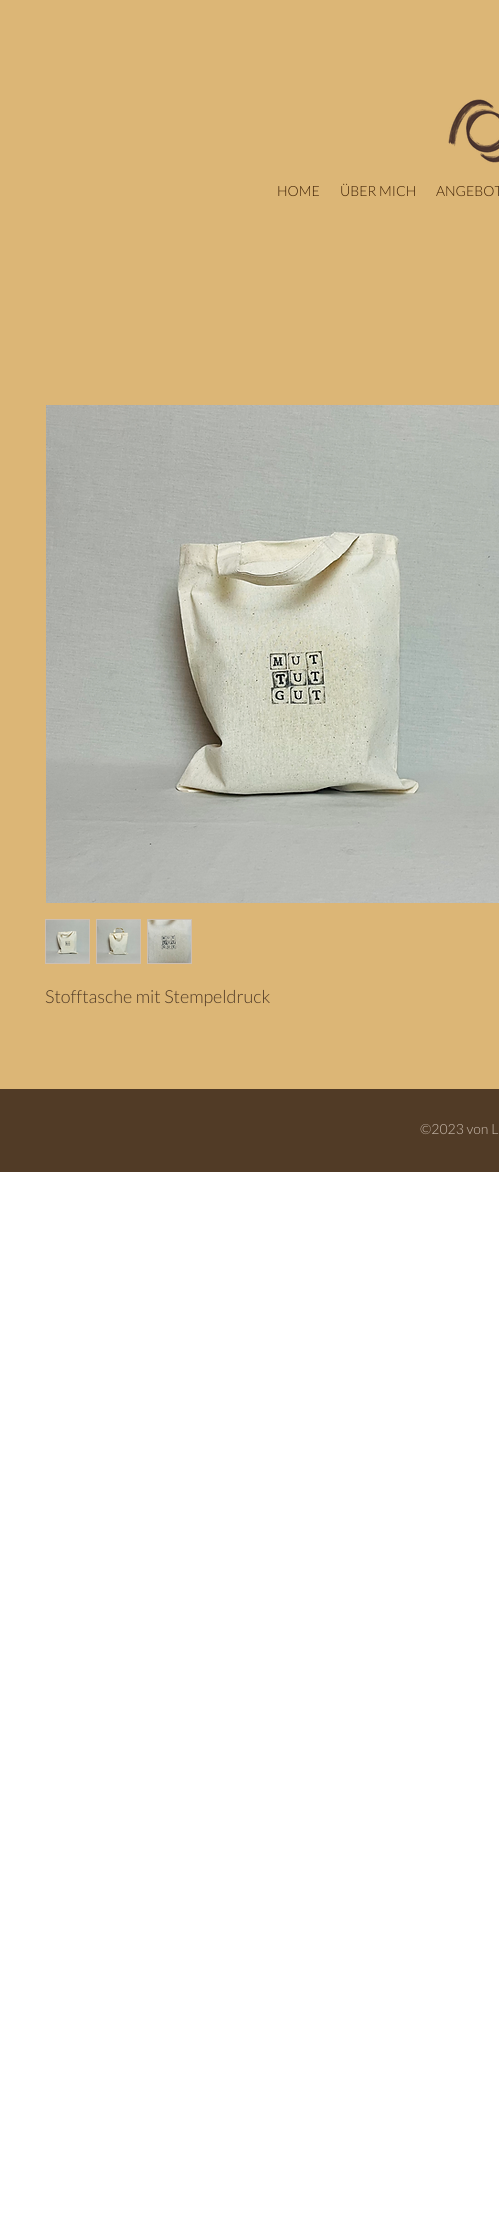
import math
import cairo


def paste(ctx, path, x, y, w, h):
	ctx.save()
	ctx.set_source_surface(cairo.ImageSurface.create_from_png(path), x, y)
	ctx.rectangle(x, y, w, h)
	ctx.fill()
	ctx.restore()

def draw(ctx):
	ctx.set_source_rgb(1, 1, 1)
	ctx.paint()
	ctx.set_source_rgb(0.863, 0.714, 0.463)
	ctx.rectangle(0, 0, 499, 1089)
	ctx.fill()
	paste(ctx, 'media/1.png', 448, 99, 51, 64)
	ctx.select_font_face('Lato Light')
	ctx.set_font_size(14)
	ctx.set_source_rgb(0.239, 0.122, 0.012)
	for x, y, s in [
		(277, 196, 'HOME'),
		(340, 196, 'ÜBER MICH'),
		(436, 196, 'ANGEBOT'),
	]:
		ctx.move_to(x, y)
		ctx.show_text(s)
	paste(ctx, 'media/2.png', 46, 405, 453, 498)
	ctx.set_source_rgb(0.804, 0.749, 0.698)
	ctx.rectangle(45, 919, 45, 45)
	ctx.fill()
	paste(ctx, 'media/3.png', 46, 920, 43, 43)
	ctx.rectangle(96, 919, 45, 45)
	ctx.fill()
	paste(ctx, 'media/4.png', 97, 920, 43, 43)
	ctx.rectangle(147, 919, 45, 45)
	ctx.fill()
	paste(ctx, 'media/5.png', 148, 920, 43, 43)
	ctx.set_font_size(18)
	ctx.set_source_rgb(0.318, 0.231, 0.149)
	ctx.move_to(45, 1003)
	ctx.show_text('Stofftasche mit Stempeldruck')
	ctx.rectangle(0, 1089, 499, 83)
	ctx.fill()
	ctx.set_font_size(14)
	ctx.set_source_rgb(0.804, 0.749, 0.698)
	ctx.move_to(420, 1134)
	ctx.show_text('©2023 von L')


surface = cairo.ImageSurface(cairo.FORMAT_RGB24, 499, 2228)
ctx = cairo.Context(surface)
options = cairo.FontOptions()
options.set_hint_metrics(cairo.HINT_METRICS_OFF)
options.set_hint_style(cairo.HINT_STYLE_NONE)
ctx.set_font_options(options)
ctx.set_miter_limit(4)
draw(ctx)
surface.write_to_png('image.png')
